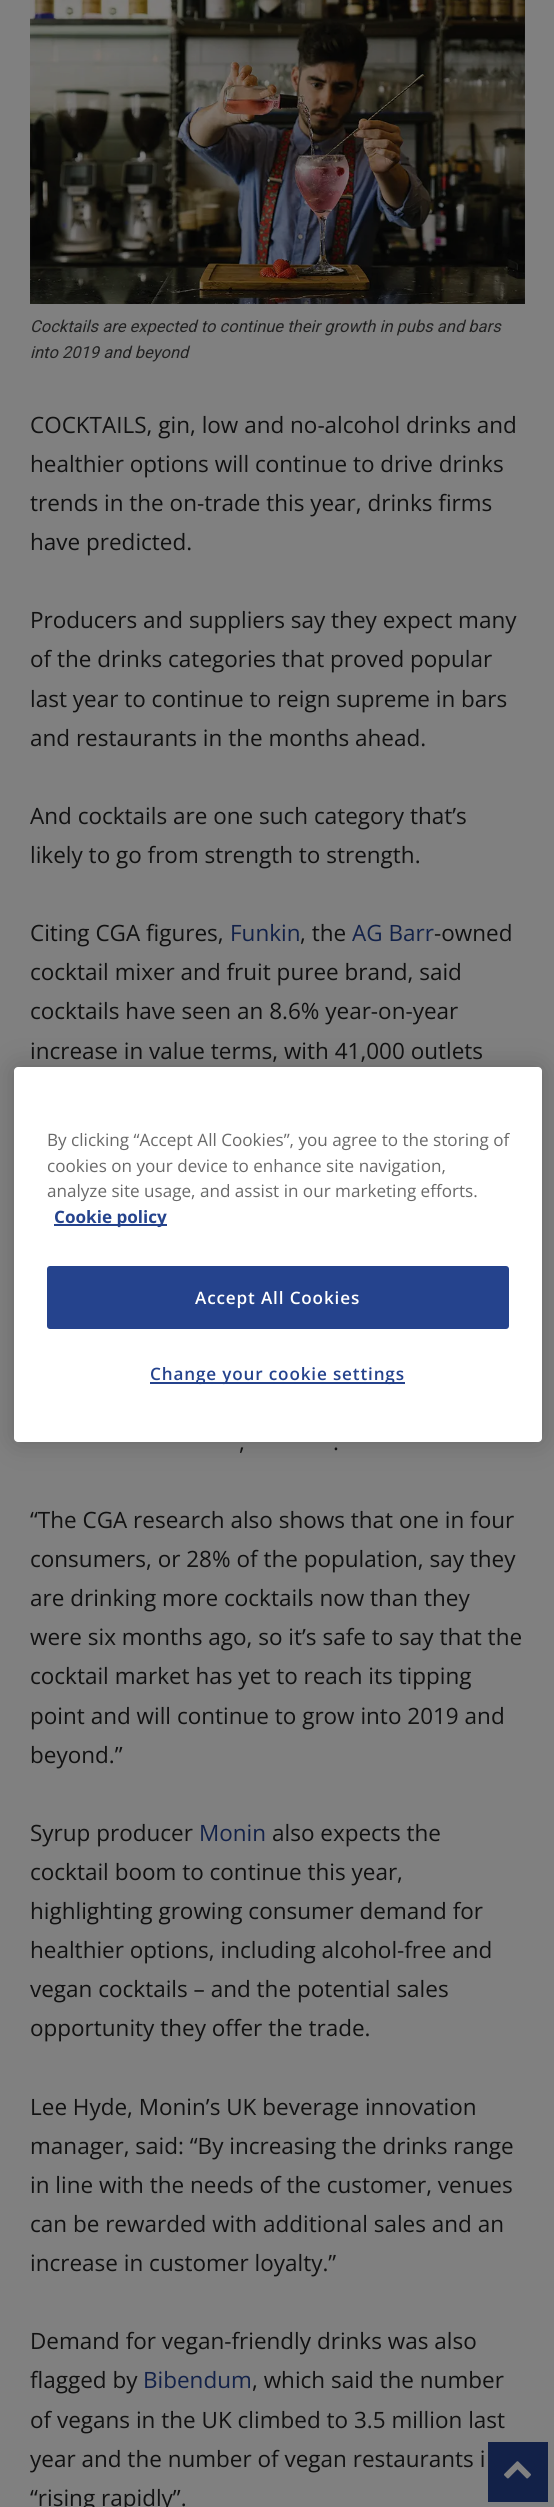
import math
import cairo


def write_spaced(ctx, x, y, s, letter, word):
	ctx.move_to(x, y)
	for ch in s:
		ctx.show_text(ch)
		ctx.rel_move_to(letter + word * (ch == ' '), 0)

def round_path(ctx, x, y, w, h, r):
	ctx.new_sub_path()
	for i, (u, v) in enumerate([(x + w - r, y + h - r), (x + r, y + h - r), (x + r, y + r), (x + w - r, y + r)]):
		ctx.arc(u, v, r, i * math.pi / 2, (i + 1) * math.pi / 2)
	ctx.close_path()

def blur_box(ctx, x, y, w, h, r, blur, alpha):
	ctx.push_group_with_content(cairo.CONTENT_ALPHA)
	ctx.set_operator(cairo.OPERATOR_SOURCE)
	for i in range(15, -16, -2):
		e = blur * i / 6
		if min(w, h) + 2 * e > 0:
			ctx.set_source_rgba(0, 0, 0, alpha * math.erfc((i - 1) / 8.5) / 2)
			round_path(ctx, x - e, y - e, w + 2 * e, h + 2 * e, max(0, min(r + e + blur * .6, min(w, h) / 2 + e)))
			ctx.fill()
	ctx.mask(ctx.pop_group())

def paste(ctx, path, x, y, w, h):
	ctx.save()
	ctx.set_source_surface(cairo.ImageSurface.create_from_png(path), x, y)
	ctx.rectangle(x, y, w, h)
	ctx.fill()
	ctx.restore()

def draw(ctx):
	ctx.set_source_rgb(0.502, 0.502, 0.502)
	ctx.paint()
	paste(ctx, 'media/1.png', 30, 0, 495, 304)
	ctx.select_font_face('Roboto', cairo.FONT_SLANT_ITALIC)
	ctx.set_font_size(16.5)
	ctx.set_source_rgb(0.133, 0.133, 0.133)
	ctx.move_to(30, 332)
	ctx.show_text('Cocktails are expected to continue their growth in pubs and bars')
	ctx.move_to(30, 358)
	ctx.show_text('into 2019 and beyond')
	ctx.select_font_face('Open Sans')
	ctx.set_font_size(22.5)
	ctx.set_source_rgb(0.067, 0.067, 0.067)
	for x, y, s in [
		(30, 433, 'COCKTAILS, gin, low and no-alcohol drinks and'),
		(30, 472, 'healthier options will continue to drive drinks'),
		(30, 511, 'trends in the on-trade this year, drinks firms'),
		(30, 550, 'have predicted.'),
		(30, 628, 'Producers and suppliers say they expect many'),
		(30, 667, 'of the drinks categories that proved popular'),
		(30, 707, 'last year to continue to reign supreme in bars'),
		(30, 746, 'and restaurants in the months ahead.'),
		(30, 824, 'And cocktails are one such category that’s'),
		(30, 863, 'likely to go from strength to strength.'),
		(30, 941, 'Citing CGA figures,'),
	]:
		ctx.move_to(x, y)
		ctx.show_text(s)
	ctx.set_source_rgb(0.071, 0.129, 0.282)
	ctx.move_to(230, 941)
	ctx.show_text('Funkin')
	ctx.set_source_rgb(0.067, 0.067, 0.067)
	ctx.move_to(300, 941)
	ctx.show_text(', the')
	ctx.set_source_rgb(0.071, 0.129, 0.282)
	ctx.move_to(352, 941)
	ctx.show_text('AG Barr')
	ctx.set_source_rgb(0.067, 0.067, 0.067)
	for x, y, s in [
		(434, 941, '-owned'),
		(30, 980, 'cocktail mixer and fruit puree brand, said'),
		(30, 1019, 'cocktails have seen an 8.6% year-on-year'),
		(30, 1059, 'increase in value terms, with 41,000 outlets'),
		(239, 1450, ','),
		(333, 1450, '.'),
		(30, 1528, '“The CGA research also shows that one in four'),
		(30, 1567, 'consumers, or 28% of the population, say they'),
		(30, 1606, 'are drinking more cocktails now than they'),
		(30, 1645, 'were six months ago, so it’s safe to say that the'),
		(30, 1684, 'cocktail market has yet to reach its tipping'),
		(30, 1724, 'point and will continue to grow into 2019 and'),
		(30, 1763, 'beyond.”'),
		(30, 1841, 'Syrup producer'),
	]:
		ctx.move_to(x, y)
		ctx.show_text(s)
	ctx.set_source_rgb(0.071, 0.129, 0.282)
	ctx.move_to(199, 1841)
	ctx.show_text('Monin')
	ctx.set_source_rgb(0.067, 0.067, 0.067)
	for x, y, s in [
		(272, 1841, 'also expects the'),
		(30, 1880, 'cocktail boom to continue this year,'),
		(30, 1919, 'highlighting growing consumer demand for'),
		(30, 1958, 'healthier options, including alcohol-free and'),
		(30, 1997, 'vegan cocktails – and the potential sales'),
		(30, 2036, 'opportunity they offer the trade.'),
		(30, 2115, 'Lee Hyde, Monin’s UK beverage innovation'),
		(30, 2154, 'manager, said: “By increasing the drinks range'),
		(30, 2193, 'in line with the needs of the customer, venues'),
		(30, 2232, 'can be rewarded with additional sales and an'),
		(30, 2271, 'increase in customer loyalty.”'),
		(30, 2349, 'Demand for vegan-friendly drinks was also'),
		(30, 2388, 'flagged by'),
	]:
		ctx.move_to(x, y)
		ctx.show_text(s)
	ctx.set_source_rgb(0.071, 0.129, 0.282)
	ctx.move_to(143, 2388)
	ctx.show_text('Bibendum')
	ctx.set_source_rgb(0.067, 0.067, 0.067)
	for x, y, s in [
		(252, 2388, ', which said the number'),
		(30, 2428, 'of vegans in the UK climbed to 3.5 million last'),
		(30, 2467, 'year and the number of vegan restaurants i'),
		(30, 2506, '“rising rapidly”.'),
	]:
		ctx.move_to(x, y)
		ctx.show_text(s)
	ctx.set_source_rgb(0, 0, 0)
	blur_box(ctx, 14, 1067, 528, 375, 4, 13.5, 0.2)
	ctx.set_source_rgb(1, 1, 1)
	round_path(ctx, 14, 1067, 528, 375, 4)
	ctx.fill()
	ctx.set_font_size(17.1)
	ctx.set_source_rgb(0.412, 0.412, 0.412)
	for x, y, s in [
		(47, 1146, 'By clicking “Accept All Cookies”, you agree to the storing of'),
		(47, 1172, 'cookies on your device to enhance site navigation,'),
		(47, 1197, 'analyze site usage, and assist in our marketing efforts.'),
	]:
		ctx.move_to(x, y)
		ctx.show_text(s)
	ctx.set_source_rgb(0.145, 0.263, 0.553)
	ctx.rectangle(54, 1224, 113, 2)
	ctx.fill()
	ctx.select_font_face('Open Sans', cairo.FONT_SLANT_NORMAL, cairo.FONT_WEIGHT_BOLD)
	ctx.move_to(54, 1223)
	ctx.show_text('Cookie policy')
	round_path(ctx, 48, 1267, 460, 61, 2)
	ctx.fill_preserve()
	ctx.stroke()
	ctx.select_font_face('Open Sans SemiBold')
	ctx.set_source_rgb(1, 1, 1)
	write_spaced(ctx, 195, 1304, 'Accept All Cookies', 0.85, 0)
	ctx.set_source_rgb(0.145, 0.263, 0.553)
	ctx.rectangle(150, 1382, 255, 2)
	ctx.fill()
	write_spaced(ctx, 150, 1380, 'Change your cookie settings', 0.85, 0)
	ctx.set_source_rgb(0.071, 0.129, 0.282)
	ctx.rectangle(488, 2442, 60, 60)
	ctx.fill()
	paste(ctx, 'media/2.png', 504, 2461, 27, 18)


surface = cairo.ImageSurface(cairo.FORMAT_RGB24, 554, 2507)
ctx = cairo.Context(surface)
options = cairo.FontOptions()
options.set_hint_metrics(cairo.HINT_METRICS_OFF)
options.set_hint_style(cairo.HINT_STYLE_NONE)
ctx.set_font_options(options)
ctx.set_miter_limit(4)
draw(ctx)
surface.write_to_png('image.png')
